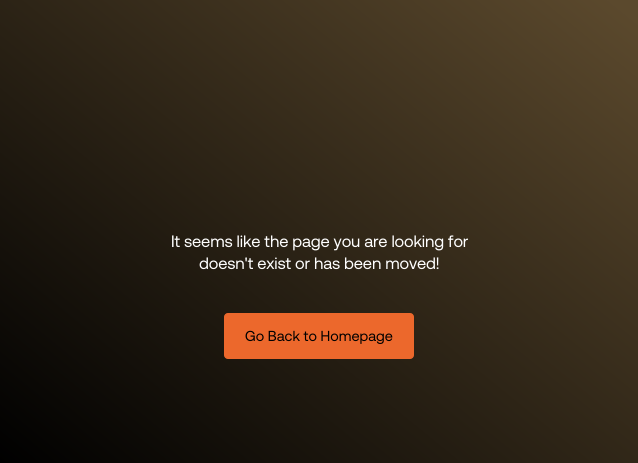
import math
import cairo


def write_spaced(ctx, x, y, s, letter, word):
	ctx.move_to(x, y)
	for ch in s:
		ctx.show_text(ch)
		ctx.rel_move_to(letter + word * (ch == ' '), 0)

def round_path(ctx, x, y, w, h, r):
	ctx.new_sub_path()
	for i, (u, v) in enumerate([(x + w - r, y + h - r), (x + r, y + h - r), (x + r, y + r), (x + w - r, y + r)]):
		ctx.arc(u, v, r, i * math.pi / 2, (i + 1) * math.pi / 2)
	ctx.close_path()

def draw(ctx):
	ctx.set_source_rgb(1, 1, 1)
	ctx.paint()
	gradient = cairo.LinearGradient(79, 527, 559, -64)
	gradient.add_color_stop_rgba(0, 0, 0, 0, 1)
	gradient.add_color_stop_rgba(0.98, 0.357, 0.286, 0.176, 1)
	ctx.set_source(gradient)
	ctx.rectangle(0, 0, 638, 463)
	ctx.fill()
	ctx.select_font_face('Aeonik')
	ctx.set_font_size(16.5)
	ctx.set_source_rgb(1, 1, 1)
	write_spaced(ctx, 171, 247, 'It seems like the page you are looking for', -0.15, 0)
	write_spaced(ctx, 199, 269, 'doesn\'t exist or has been moved!', -0.15, 0)
	ctx.set_source_rgb(0.925, 0.408, 0.173)
	round_path(ctx, 224.5, 313.5, 189, 45, 3.5)
	ctx.fill_preserve()
	ctx.set_line_width(1)
	ctx.stroke()
	ctx.set_font_size(14.5)
	ctx.set_source_rgb(0, 0, 0)
	ctx.move_to(245, 341)
	ctx.show_text('Go Back to Homepage')


surface = cairo.ImageSurface(cairo.FORMAT_RGB24, 638, 463)
ctx = cairo.Context(surface)
options = cairo.FontOptions()
options.set_hint_metrics(cairo.HINT_METRICS_OFF)
options.set_hint_style(cairo.HINT_STYLE_NONE)
ctx.set_font_options(options)
ctx.set_miter_limit(4)
draw(ctx)
surface.write_to_png('image.png')
